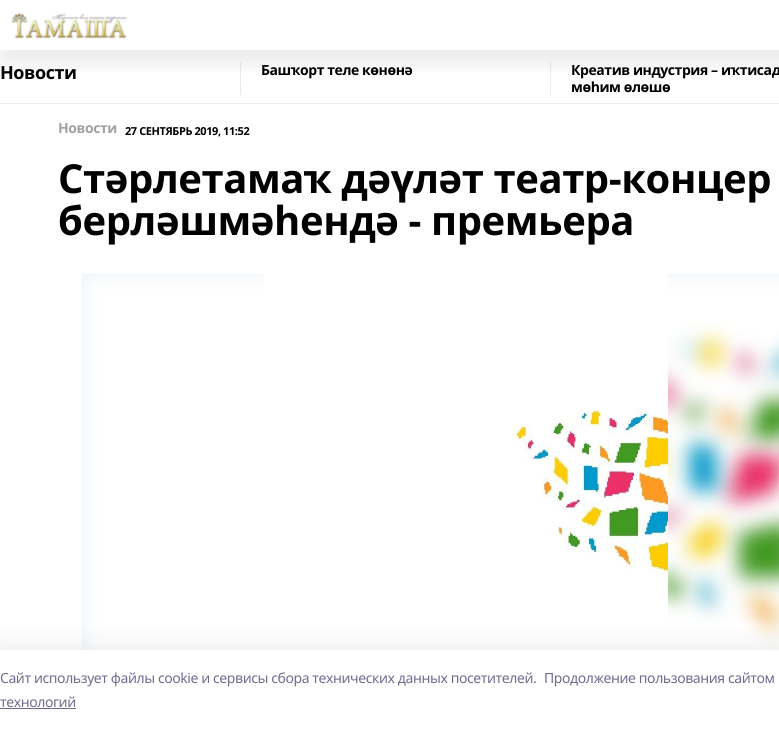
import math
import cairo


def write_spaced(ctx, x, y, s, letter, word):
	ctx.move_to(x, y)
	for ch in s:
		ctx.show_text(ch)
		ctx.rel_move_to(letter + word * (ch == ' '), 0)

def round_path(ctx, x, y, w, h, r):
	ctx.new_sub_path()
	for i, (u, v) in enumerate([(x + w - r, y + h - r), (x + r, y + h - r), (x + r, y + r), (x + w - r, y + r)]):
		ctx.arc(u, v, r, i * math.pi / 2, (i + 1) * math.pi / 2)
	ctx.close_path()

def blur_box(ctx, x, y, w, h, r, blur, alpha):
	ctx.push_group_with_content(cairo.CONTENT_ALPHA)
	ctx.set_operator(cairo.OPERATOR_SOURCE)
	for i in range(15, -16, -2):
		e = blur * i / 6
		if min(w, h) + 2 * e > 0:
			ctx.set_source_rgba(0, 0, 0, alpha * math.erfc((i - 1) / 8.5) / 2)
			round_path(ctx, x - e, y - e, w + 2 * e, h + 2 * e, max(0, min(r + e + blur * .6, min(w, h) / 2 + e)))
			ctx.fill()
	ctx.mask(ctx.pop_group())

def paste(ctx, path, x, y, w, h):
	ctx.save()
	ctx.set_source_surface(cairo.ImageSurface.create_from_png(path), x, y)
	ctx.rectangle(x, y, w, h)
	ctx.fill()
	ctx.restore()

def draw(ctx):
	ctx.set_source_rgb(1, 1, 1)
	ctx.paint()
	ctx.set_source_rgb(0.918, 0.918, 0.918)
	ctx.rectangle(240, 62, 1, 33)
	ctx.fill()
	ctx.rectangle(550, 62, 1, 33)
	ctx.fill()
	ctx.save()
	ctx.rectangle(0, 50, 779, 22)
	ctx.clip()
	ctx.set_source_rgb(0, 0, 0)
	blur_box(ctx, 0, 15, 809, 50, 0, 10, 0.08)
	ctx.restore()
	paste(ctx, 'media/1.png', 11, 13, 116, 26)
	ctx.rectangle(0, 103, 779, 1)
	ctx.fill()
	ctx.select_font_face('Noto Sans', cairo.FONT_SLANT_NORMAL, cairo.FONT_WEIGHT_BOLD)
	ctx.set_font_size(18)
	ctx.set_source_rgb(0, 0, 0)
	write_spaced(ctx, 0, 79, 'Новости', -0.42, 0)
	ctx.set_font_size(14)
	for x, y, s in [
		(261, 75, 'Башҡорт теле көнөнә'),
		(571, 75, 'Креатив индустрия – иҡтисад'),
		(571, 92, 'мөһим өлөшө'),
	]:
		write_spaced(ctx, x, y, s, -0.42, 0)
	ctx.set_source_rgb(0.631, 0.631, 0.631)
	write_spaced(ctx, 58, 133, 'Новости', -0.42, 0)
	ctx.set_font_size(11)
	ctx.set_source_rgb(0, 0, 0)
	write_spaced(ctx, 125, 135, '27 СЕНТЯБРЬ 2019, 11:52', -0.42, 0)
	ctx.set_font_size(40)
	write_spaced(ctx, 58, 193, 'Стәрлетамаҡ дәүләт театр-концер', -0.42, 0)
	write_spaced(ctx, 58, 235, 'берләшмәһендә - премьера', -0.42, 0)
	ctx.set_source_rgb(0.929, 0.949, 0.969)
	ctx.rectangle(82, 274, 697, 376)
	ctx.fill()
	paste(ctx, 'media/2.png', 82, 274, 697, 376)
	paste(ctx, 'media/3.png', 264, 274, 404, 376)
	ctx.set_source_rgb(0.078, 0.078, 0.169)
	blur_box(ctx, 0, 644, 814, 80, 0, 11.5, 0.08)
	ctx.set_source_rgb(1, 1, 1)
	ctx.rectangle(0, 650, 779, 80)
	ctx.fill()
	ctx.select_font_face('Noto Sans')
	ctx.set_font_size(14)
	ctx.set_source_rgb(0.435, 0.424, 0.565)
	for x, y, s in [
		(0, 683, 'Cайт использует файлы cookie и сервисы сбора технических данных посетителей.'),
		(544, 683, 'Продолжение пользования сайтом'),
		(0, 707, 'технологий'),
	]:
		write_spaced(ctx, x, y, s, -0.42, 0)
	ctx.rectangle(0, 708, 76, 1)
	ctx.fill()


surface = cairo.ImageSurface(cairo.FORMAT_RGB24, 779, 730)
ctx = cairo.Context(surface)
options = cairo.FontOptions()
options.set_hint_metrics(cairo.HINT_METRICS_OFF)
options.set_hint_style(cairo.HINT_STYLE_NONE)
ctx.set_font_options(options)
ctx.set_miter_limit(4)
draw(ctx)
surface.write_to_png('image.png')
